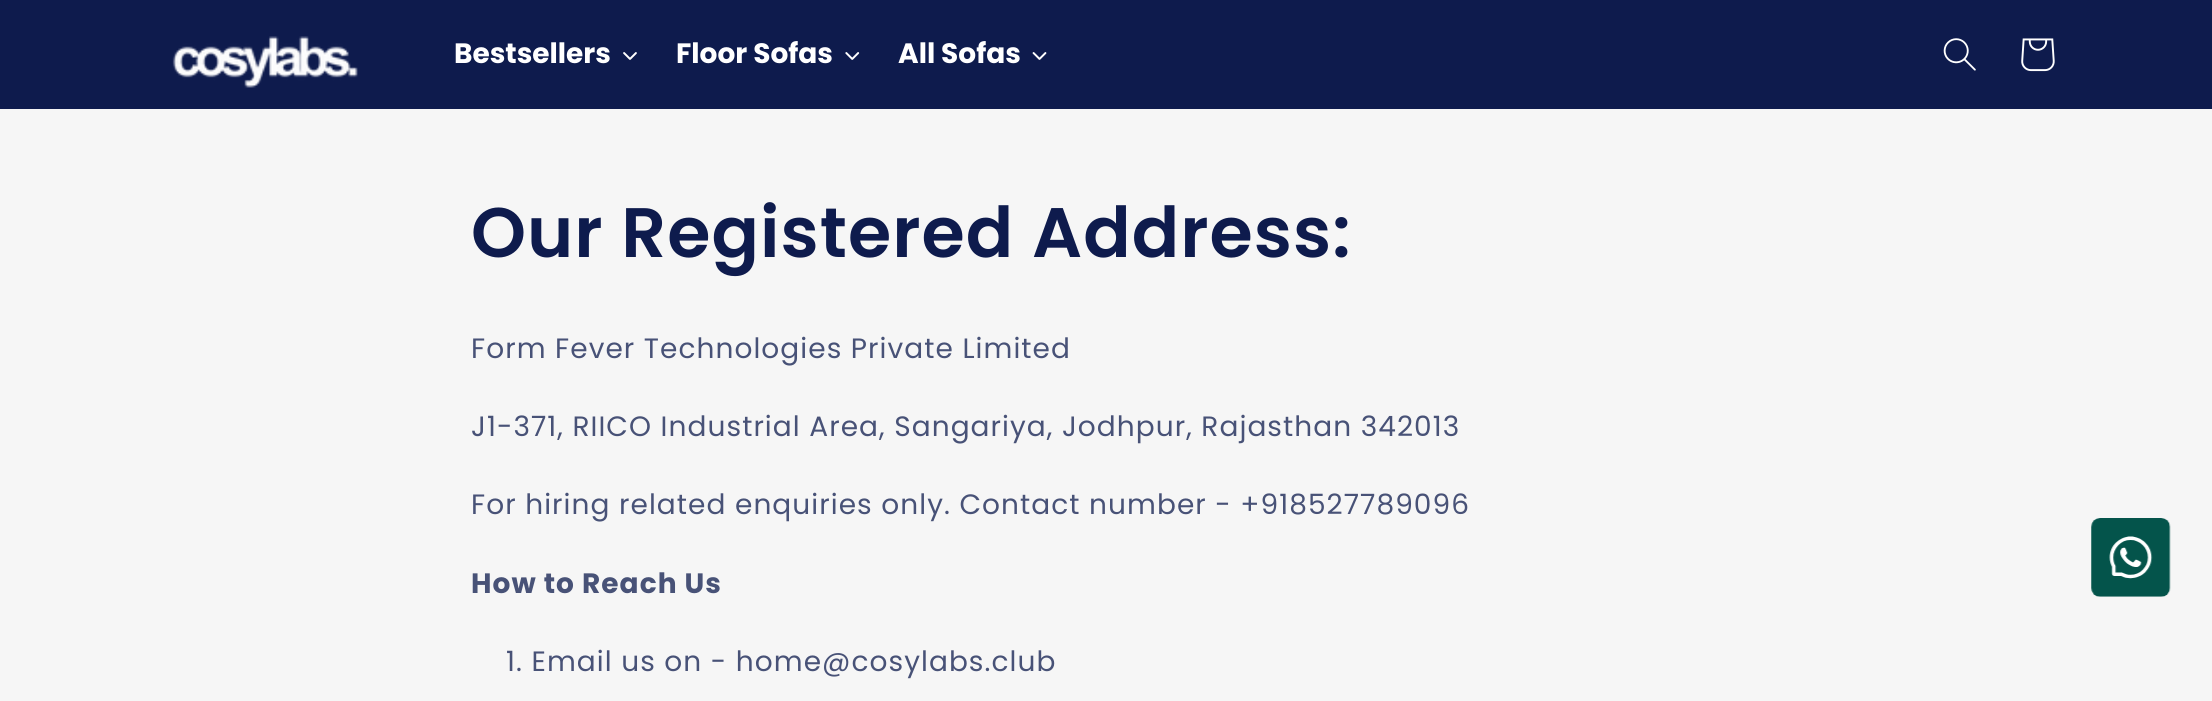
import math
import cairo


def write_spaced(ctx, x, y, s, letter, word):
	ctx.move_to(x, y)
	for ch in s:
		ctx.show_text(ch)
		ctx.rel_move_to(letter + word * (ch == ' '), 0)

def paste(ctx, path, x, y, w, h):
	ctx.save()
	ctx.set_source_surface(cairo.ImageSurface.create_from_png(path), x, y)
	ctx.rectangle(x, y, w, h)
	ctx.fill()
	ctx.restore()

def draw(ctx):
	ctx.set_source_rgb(0.961, 0.961, 0.961)
	ctx.paint()
	ctx.set_source_rgb(0.055, 0.106, 0.302)
	ctx.rectangle(0, 0, 2212, 109)
	ctx.fill()
	paste(ctx, 'media/1.png', 172, 36, 186, 52)
	ctx.select_font_face('Poppins', cairo.FONT_SLANT_NORMAL, cairo.FONT_WEIGHT_BOLD)
	ctx.set_font_size(28)
	ctx.set_source_rgb(1, 1, 1)
	ctx.move_to(454, 63)
	ctx.show_text('Bestsellers')
	paste(ctx, 'media/2.png', 623, 52, 14, 8)
	ctx.move_to(676, 63)
	ctx.show_text('Floor Sofas')
	paste(ctx, 'media/3.png', 845, 52, 15, 8)
	ctx.move_to(898, 63)
	ctx.show_text('All Sofas')
	paste(ctx, 'media/4.png', 1032, 52, 15, 8)
	paste(ctx, 'media/5.png', 1943, 38, 33, 33)
	paste(ctx, 'media/6.png', 2021, 38, 34, 34)
	ctx.select_font_face('Poppins SemiBold')
	ctx.set_font_size(70)
	ctx.set_source_rgb(0.055, 0.106, 0.302)
	write_spaced(ctx, 471, 257, 'Our Registered Address:', 1.05, 0)
	ctx.select_font_face('Poppins')
	ctx.set_font_size(28)
	ctx.set_source_rgb(0.282, 0.322, 0.467)
	for x, y, s in [
		(471, 358, 'Form Fever Technologies Private Limited'),
		(471, 436, 'J1-371, RIICO Industrial Area, Sangariya, Jodhpur, Rajasthan 342013'),
		(471, 514, 'For hiring related enquiries only. Contact number - +918527789096'),
	]:
		write_spaced(ctx, x, y, s, 1.05, 0)
	ctx.select_font_face('Poppins', cairo.FONT_SLANT_NORMAL, cairo.FONT_WEIGHT_BOLD)
	write_spaced(ctx, 471, 593, 'How to Reach Us', 1.05, 0)
	ctx.select_font_face('Poppins')
	write_spaced(ctx, 506, 671, '1. Email us on - home@cosylabs.club', 1.05, 0)
	paste(ctx, 'media/7.png', 2091, 518, 80, 79)


surface = cairo.ImageSurface(cairo.FORMAT_RGB24, 2212, 701)
ctx = cairo.Context(surface)
options = cairo.FontOptions()
options.set_hint_metrics(cairo.HINT_METRICS_OFF)
options.set_hint_style(cairo.HINT_STYLE_NONE)
ctx.set_font_options(options)
ctx.set_miter_limit(4)
draw(ctx)
surface.write_to_png('image.png')
